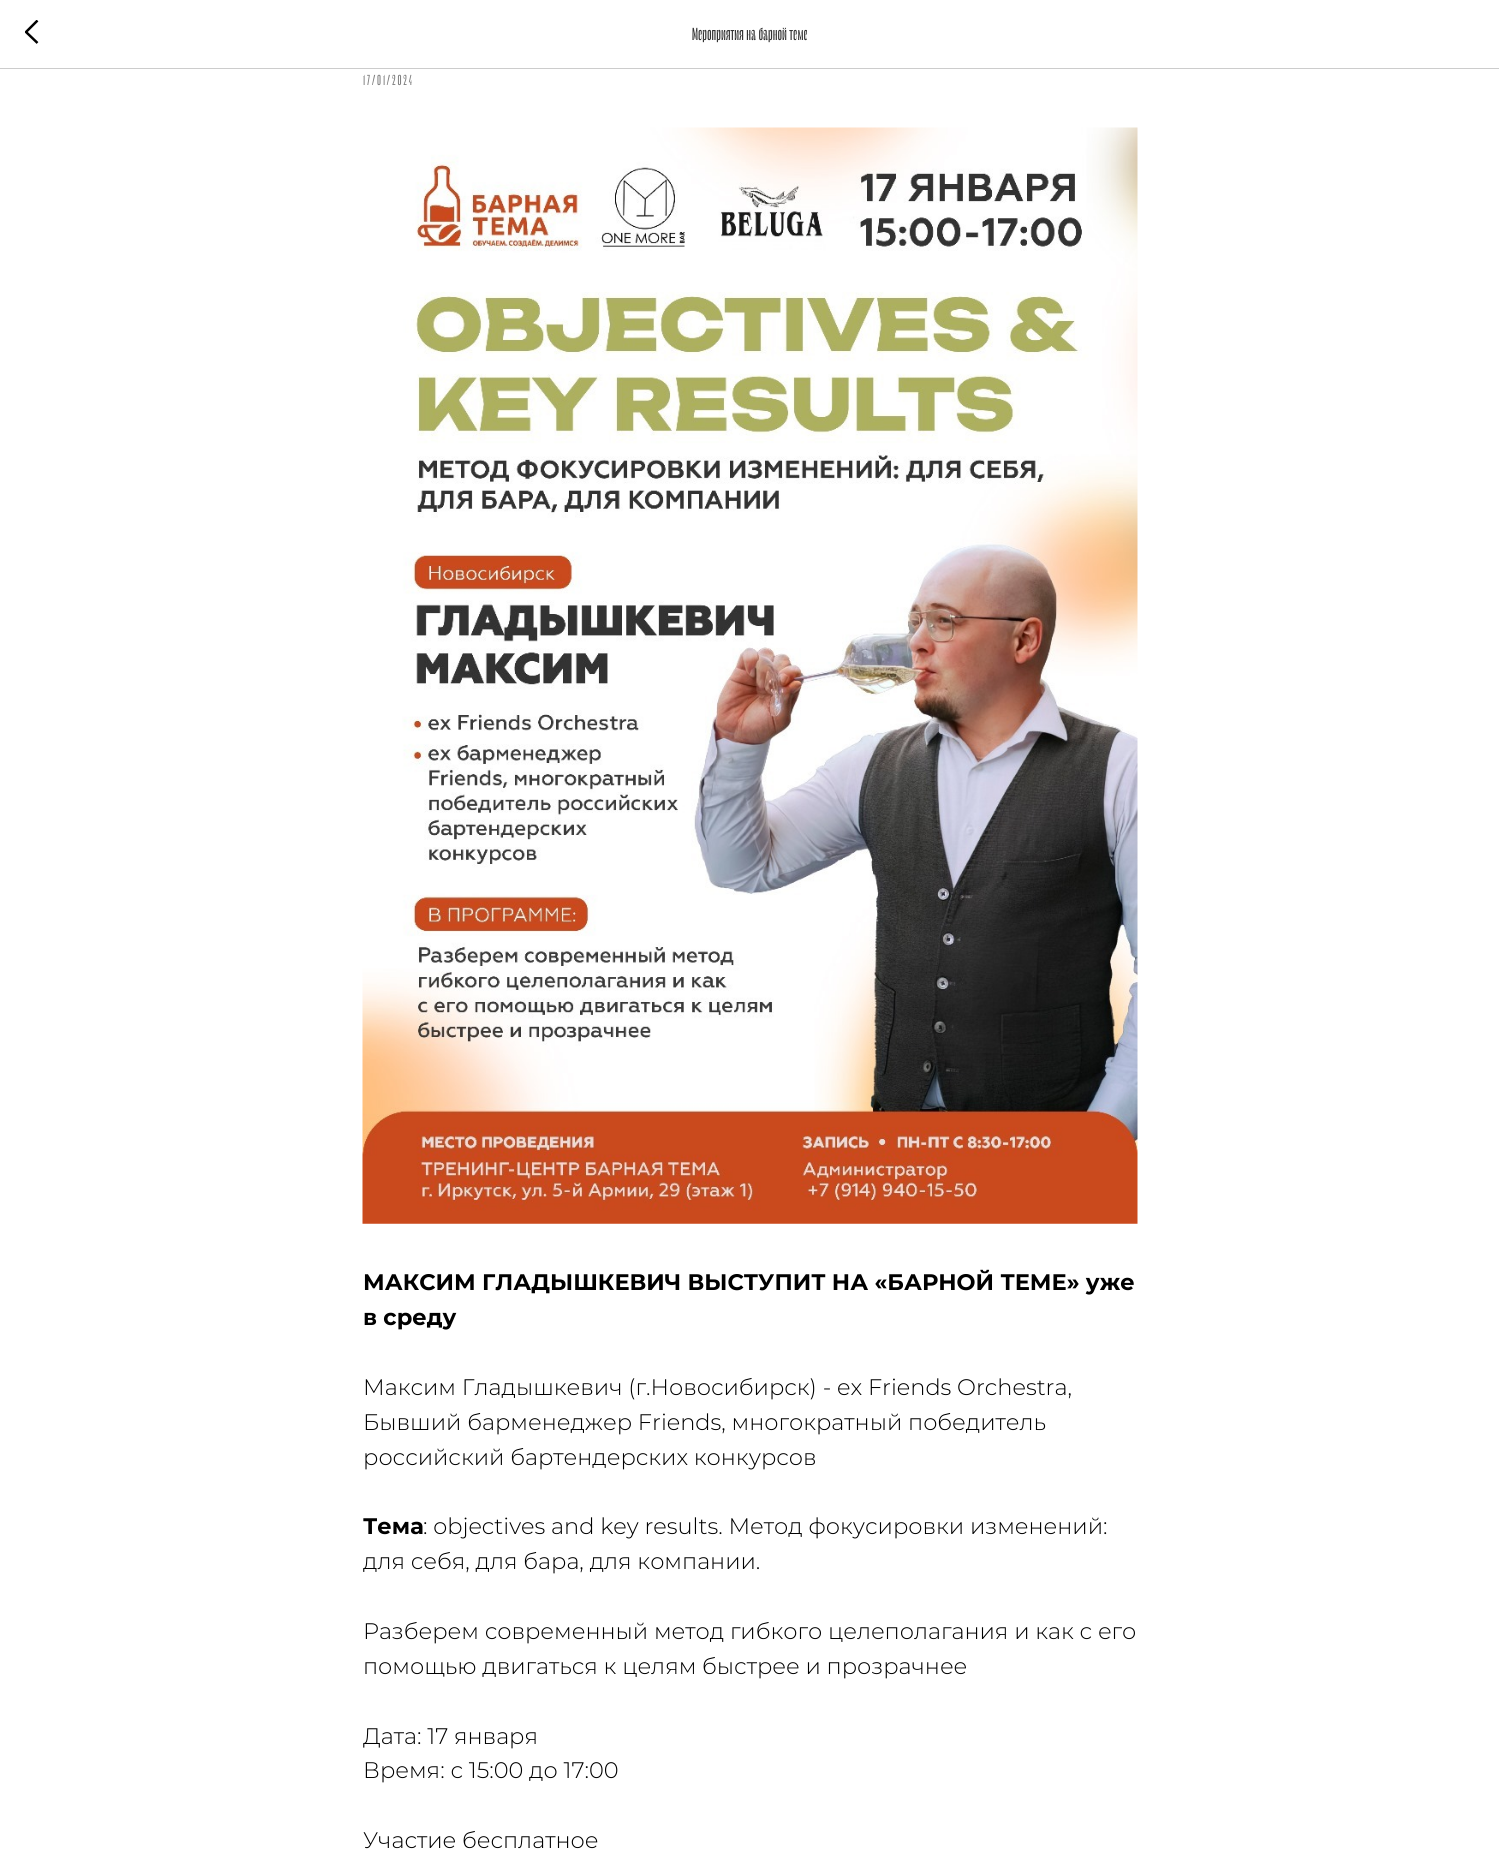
import math
import cairo


def write_spaced(ctx, x, y, s, letter, word):
	ctx.move_to(x, y)
	for ch in s:
		ctx.show_text(ch)
		ctx.rel_move_to(letter + word * (ch == ' '), 0)

def paste(ctx, path, x, y, w, h):
	ctx.save()
	ctx.set_source_surface(cairo.ImageSurface.create_from_png(path), x, y)
	ctx.rectangle(x, y, w, h)
	ctx.fill()
	ctx.restore()

def draw(ctx):
	ctx.set_source_rgb(1, 1, 1)
	ctx.paint()
	ctx.set_source_rgb(0.8, 0.8, 0.8)
	ctx.rectangle(0, 68, 1499, 1)
	ctx.fill()
	ctx.save()
	ctx.rectangle(25, 20, 14, 25)
	ctx.clip()
	ctx.new_path()
	ctx.move_to(37.5, 43)
	ctx.line_to(26, 32)
	ctx.line_to(37.5, 20.5)
	ctx.set_source_rgb(0, 0, 0)
	ctx.set_line_width(2.5)
	ctx.stroke()
	ctx.restore()
	ctx.select_font_face('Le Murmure')
	ctx.set_font_size(15)
	ctx.set_source_rgb(0.2, 0.2, 0.2)
	ctx.move_to(692, 40)
	ctx.show_text('Мероприятия на барной теме')
	ctx.set_font_size(12.5)
	ctx.set_source_rgb(0.502, 0.502, 0.502)
	write_spaced(ctx, 363, 85, '17/01/2024', 1.9, 0)
	paste(ctx, 'media/1.png', 362, 127, 776, 1097)
	ctx.select_font_face('Montserrat', cairo.FONT_SLANT_NORMAL, cairo.FONT_WEIGHT_BOLD)
	ctx.set_font_size(22.5)
	ctx.set_source_rgb(0, 0, 0)
	ctx.move_to(363, 1290)
	ctx.show_text('МАКСИМ ГЛАДЫШКЕВИЧ ВЫСТУПИТ НА «БАРНОЙ ТЕМЕ» уже')
	ctx.move_to(363, 1325)
	ctx.show_text('в среду')
	ctx.select_font_face('Montserrat Light')
	for x, y, s in [
		(363, 1395, 'Максим Гладышкевич (г.Новосибирск) - ex Friends Orchestra,'),
		(363, 1430, 'Бывший барменеджер Friends, многократный победитель'),
		(363, 1465, 'российский бартендерских конкурсов'),
	]:
		ctx.move_to(x, y)
		ctx.show_text(s)
	ctx.select_font_face('Montserrat', cairo.FONT_SLANT_NORMAL, cairo.FONT_WEIGHT_BOLD)
	ctx.move_to(363, 1534)
	ctx.show_text('Тема')
	ctx.select_font_face('Montserrat Light')
	for x, y, s in [
		(423, 1534, ': objectives and key results. Метод фокусировки изменений:'),
		(363, 1569, 'для себя, для бара, для компании.'),
		(363, 1639, 'Разберем современный метод гибкого целеполагания и как с его'),
		(363, 1674, 'помощью двигаться к целям быстрее и прозрачнее'),
		(363, 1744, 'Дата: 17 января'),
		(363, 1778, 'Время: с 15:00 до 17:00'),
		(363, 1848, 'Участие бесплатное'),
	]:
		ctx.move_to(x, y)
		ctx.show_text(s)


surface = cairo.ImageSurface(cairo.FORMAT_RGB24, 1499, 1865)
ctx = cairo.Context(surface)
options = cairo.FontOptions()
options.set_hint_metrics(cairo.HINT_METRICS_OFF)
options.set_hint_style(cairo.HINT_STYLE_NONE)
ctx.set_font_options(options)
ctx.set_miter_limit(4)
draw(ctx)
surface.write_to_png('image.png')
